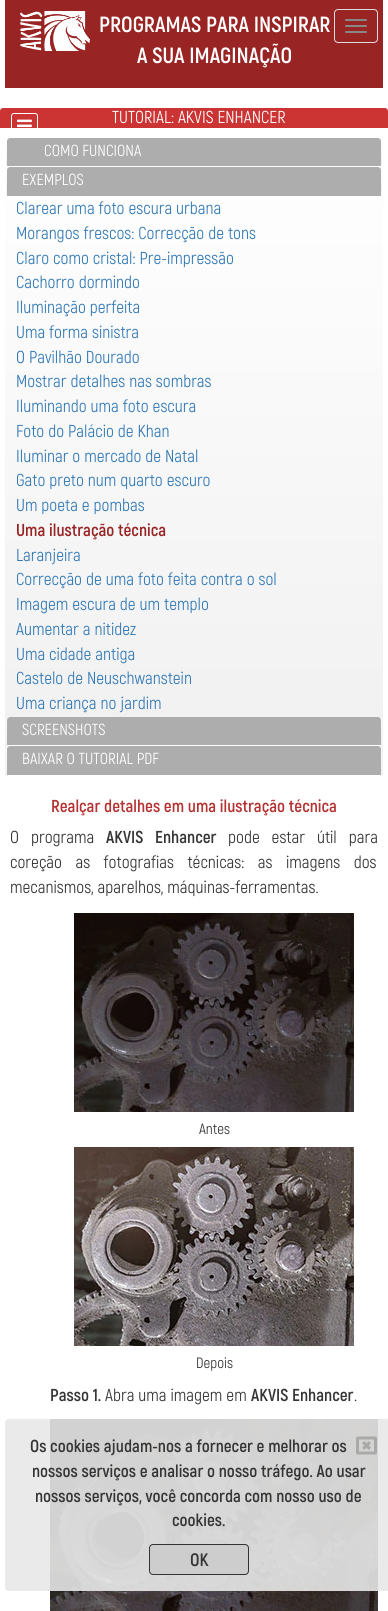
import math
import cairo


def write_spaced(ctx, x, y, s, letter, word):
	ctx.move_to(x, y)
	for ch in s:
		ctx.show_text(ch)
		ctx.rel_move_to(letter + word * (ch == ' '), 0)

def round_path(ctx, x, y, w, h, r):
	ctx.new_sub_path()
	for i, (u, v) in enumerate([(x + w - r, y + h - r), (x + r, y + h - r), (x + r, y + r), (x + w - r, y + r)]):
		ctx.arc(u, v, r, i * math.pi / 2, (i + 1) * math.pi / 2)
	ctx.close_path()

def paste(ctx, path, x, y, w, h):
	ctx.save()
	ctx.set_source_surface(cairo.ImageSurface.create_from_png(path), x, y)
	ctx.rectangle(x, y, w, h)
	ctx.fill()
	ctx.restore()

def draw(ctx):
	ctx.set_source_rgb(1, 1, 1)
	ctx.paint()
	ctx.set_source_rgb(0.6, 0.141, 0.141)
	ctx.rectangle(5, 0, 378, 88)
	ctx.fill()
	paste(ctx, 'media/1.png', 20, 11, 70, 40)
	ctx.select_font_face('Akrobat', cairo.FONT_SLANT_NORMAL, cairo.FONT_WEIGHT_BOLD)
	ctx.set_font_size(22)
	ctx.set_source_rgb(1, 1, 1)
	ctx.move_to(99, 32)
	ctx.show_text('PROGRAMAS PARA INSPIRAR')
	ctx.move_to(137, 63)
	ctx.show_text('A SUA IMAGINAÇÃO')
	round_path(ctx, 334.5, 9.5, 43, 33, 3.5)
	ctx.set_source_rgb(0.867, 0.867, 0.867)
	ctx.set_line_width(1)
	ctx.stroke()
	ctx.set_source_rgb(0.533, 0.533, 0.533)
	round_path(ctx, 345, 19, 22, 2, 1)
	ctx.fill()
	round_path(ctx, 345, 25, 22, 2, 1)
	ctx.fill()
	round_path(ctx, 345, 31, 22, 2, 1)
	ctx.fill()
	ctx.set_source_rgb(0.8, 0.2, 0.2)
	ctx.new_path()
	ctx.move_to(3, 108)
	ctx.line_to(385, 108)
	ctx.curve_to(386.5, 108, 388, 109.5, 388, 111)
	ctx.line_to(388, 128)
	ctx.line_to(0, 128)
	ctx.line_to(0, 111)
	ctx.curve_to(0, 109.5, 1.5, 108, 3, 108)
	ctx.close_path()
	ctx.fill()
	round_path(ctx, 11.5, 113.5, 26, 24, 2.5)
	ctx.set_source_rgb(1, 1, 1)
	ctx.stroke()
	paste(ctx, 'media/2.png', 17, 119, 15, 9)
	ctx.select_font_face('Akrobat')
	ctx.set_font_size(17.3)
	ctx.move_to(112, 123)
	ctx.show_text('TUTORIAL: AKVIS ENHANCER')
	ctx.save()
	round_path(ctx, 5, 138, 378, 639, 4)
	ctx.clip()
	gradient = cairo.LinearGradient(194, 776, 194, 138)
	gradient.add_color_stop_rgba(0, 0.941, 0.941, 0.941, 1)
	gradient.add_color_stop_rgba(1, 1, 1, 1, 1)
	ctx.set_source(gradient)
	ctx.new_path()
	ctx.move_to(9, 138)
	ctx.line_to(379, 138)
	ctx.curve_to(381, 138, 383, 140, 383, 142)
	ctx.line_to(383, 776)
	ctx.line_to(5, 776)
	ctx.line_to(5, 142)
	ctx.curve_to(5, 140, 7, 138, 9, 138)
	ctx.close_path()
	ctx.fill()
	ctx.restore()
	ctx.save()
	round_path(ctx, 6, 138, 376, 29, 4)
	ctx.clip()
	gradient = cairo.LinearGradient(194, 166, 194, 138)
	gradient.add_color_stop_rgba(0, 0.941, 0.941, 0.941, 1)
	gradient.add_color_stop_rgba(1, 1, 1, 1, 1)
	ctx.set_source(gradient)
	ctx.new_path()
	ctx.move_to(10, 138)
	ctx.line_to(378, 138)
	ctx.curve_to(380, 138, 382, 140, 382, 142)
	ctx.line_to(382, 166)
	ctx.line_to(6, 166)
	ctx.line_to(6, 142)
	ctx.curve_to(6, 140, 8, 138, 10, 138)
	ctx.close_path()
	ctx.fill()
	ctx.restore()
	ctx.set_source_rgb(0.678, 0.678, 0.678)
	ctx.new_path()
	ctx.move_to(10, 138)
	ctx.line_to(378, 138)
	ctx.curve_to(379.5, 138, 381, 139.5, 381, 141)
	ctx.line_to(381, 166)
	ctx.line_to(7, 166)
	ctx.line_to(7, 141)
	ctx.curve_to(7, 139.5, 8.5, 138, 10, 138)
	ctx.close_path()
	ctx.fill()
	ctx.set_font_size(16)
	ctx.set_source_rgb(1, 1, 1)
	ctx.move_to(44, 156)
	ctx.show_text('COMO FUNCIONA')
	ctx.save()
	round_path(ctx, 6, 167, 376, 30, 4)
	ctx.clip()
	gradient = cairo.LinearGradient(194, 196, 194, 167)
	gradient.add_color_stop_rgba(0, 0.941, 0.941, 0.941, 1)
	gradient.add_color_stop_rgba(1, 1, 1, 1, 1)
	ctx.set_source(gradient)
	ctx.new_path()
	ctx.move_to(10, 167)
	ctx.line_to(378, 167)
	ctx.curve_to(380, 167, 382, 169, 382, 171)
	ctx.line_to(382, 196)
	ctx.line_to(6, 196)
	ctx.line_to(6, 171)
	ctx.curve_to(6, 169, 8, 167, 10, 167)
	ctx.close_path()
	ctx.fill()
	ctx.restore()
	ctx.set_source_rgb(0.678, 0.678, 0.678)
	ctx.new_path()
	ctx.move_to(10, 167)
	ctx.line_to(378, 167)
	ctx.curve_to(379.5, 167, 381, 168.5, 381, 170)
	ctx.line_to(381, 196)
	ctx.line_to(7, 196)
	ctx.line_to(7, 170)
	ctx.curve_to(7, 168.5, 8.5, 167, 10, 167)
	ctx.close_path()
	ctx.fill()
	ctx.set_source_rgb(1, 1, 1)
	ctx.move_to(22, 185)
	ctx.show_text('EXEMPLOS')
	ctx.set_font_size(17.3)
	ctx.set_source_rgb(0.2, 0.478, 0.718)
	for x, y, s in [
		(16, 214, 'Clarear uma foto escura urbana'),
		(16, 239, 'Morangos frescos: Correcção de tons'),
		(16, 264, 'Claro como cristal: Pre-impressão'),
		(16, 288, 'Cachorro dormindo'),
		(16, 313, 'Iluminação perfeita'),
		(16, 338, 'Uma forma sinistra'),
		(16, 363, 'O Pavilhão Dourado'),
		(16, 387, 'Mostrar detalhes nas sombras'),
		(16, 412, 'Iluminando uma foto escura'),
		(16, 437, 'Foto do Palácio de Khan'),
		(16, 462, 'Iluminar o mercado de Natal'),
		(16, 486, 'Gato preto num quarto escuro'),
		(16, 511, 'Um poeta e pombas'),
	]:
		ctx.move_to(x, y)
		ctx.show_text(s)
	ctx.select_font_face('Akrobat', cairo.FONT_SLANT_NORMAL, cairo.FONT_WEIGHT_BOLD)
	ctx.set_source_rgb(0.6, 0.141, 0.141)
	ctx.move_to(16, 536)
	ctx.show_text('Uma ilustração técnica')
	ctx.select_font_face('Akrobat')
	ctx.set_source_rgb(0.2, 0.478, 0.718)
	for x, y, s in [
		(16, 561, 'Laranjeira'),
		(16, 585, 'Correcção de uma foto feita contra o sol'),
		(16, 610, 'Imagem escura de um templo'),
		(16, 635, 'Aumentar a nitidez'),
		(16, 660, 'Uma cidade antiga'),
		(16, 684, 'Castelo de Neuschwanstein'),
		(16, 709, 'Uma criança no jardim'),
	]:
		ctx.move_to(x, y)
		ctx.show_text(s)
	ctx.set_source_rgb(1, 1, 1)
	round_path(ctx, 6, 717, 376, 29, 4)
	ctx.fill()
	ctx.save()
	round_path(ctx, 6, 717, 376, 29, 4)
	ctx.clip()
	gradient = cairo.LinearGradient(194, 745, 194, 717)
	gradient.add_color_stop_rgba(0, 0.941, 0.941, 0.941, 1)
	gradient.add_color_stop_rgba(1, 1, 1, 1, 1)
	ctx.set_source(gradient)
	ctx.new_path()
	ctx.move_to(10, 717)
	ctx.line_to(378, 717)
	ctx.curve_to(380, 717, 382, 719, 382, 721)
	ctx.line_to(382, 745)
	ctx.line_to(6, 745)
	ctx.line_to(6, 721)
	ctx.curve_to(6, 719, 8, 717, 10, 717)
	ctx.close_path()
	ctx.fill()
	gradient = cairo.LinearGradient(194, 773, 194, 745)
	gradient.add_color_stop_rgba(0, 0.941, 0.941, 0.941, 1)
	gradient.add_color_stop_rgba(1, 1, 1, 1, 1)
	ctx.set_source(gradient)
	ctx.rectangle(6, 745, 376, 1)
	ctx.fill()
	ctx.restore()
	ctx.set_source_rgb(0.678, 0.678, 0.678)
	ctx.new_path()
	ctx.move_to(10, 717)
	ctx.line_to(378, 717)
	ctx.curve_to(379.5, 717, 381, 718.5, 381, 720)
	ctx.line_to(381, 745)
	ctx.line_to(7, 745)
	ctx.line_to(7, 720)
	ctx.curve_to(7, 718.5, 8.5, 717, 10, 717)
	ctx.close_path()
	ctx.fill()
	ctx.set_font_size(16)
	ctx.set_source_rgb(1, 1, 1)
	ctx.move_to(22, 735)
	ctx.show_text('SCREENSHOTS')
	round_path(ctx, 6, 746, 376, 30, 4)
	ctx.fill()
	ctx.save()
	round_path(ctx, 6, 746, 376, 30, 4)
	ctx.clip()
	gradient = cairo.LinearGradient(194, 775, 194, 746)
	gradient.add_color_stop_rgba(0, 0.941, 0.941, 0.941, 1)
	gradient.add_color_stop_rgba(1, 1, 1, 1, 1)
	ctx.set_source(gradient)
	ctx.new_path()
	ctx.move_to(10, 746)
	ctx.line_to(378, 746)
	ctx.curve_to(380, 746, 382, 748, 382, 750)
	ctx.line_to(382, 775)
	ctx.line_to(6, 775)
	ctx.line_to(6, 750)
	ctx.curve_to(6, 748, 8, 746, 10, 746)
	ctx.close_path()
	ctx.fill()
	gradient = cairo.LinearGradient(194, 804, 194, 775)
	gradient.add_color_stop_rgba(0, 0.941, 0.941, 0.941, 1)
	gradient.add_color_stop_rgba(1, 1, 1, 1, 1)
	ctx.set_source(gradient)
	ctx.rectangle(6, 775, 376, 1)
	ctx.fill()
	ctx.restore()
	ctx.set_source_rgb(0.678, 0.678, 0.678)
	ctx.new_path()
	ctx.move_to(10, 746)
	ctx.line_to(378, 746)
	ctx.curve_to(379.5, 746, 381, 747.5, 381, 749)
	ctx.line_to(381, 775)
	ctx.line_to(7, 775)
	ctx.line_to(7, 749)
	ctx.curve_to(7, 747.5, 8.5, 746, 10, 746)
	ctx.close_path()
	ctx.fill()
	ctx.set_source_rgb(1, 1, 1)
	ctx.move_to(22, 764)
	ctx.show_text('BAIXAR O TUTORIAL PDF')
	ctx.select_font_face('Akrobat', cairo.FONT_SLANT_NORMAL, cairo.FONT_WEIGHT_BOLD)
	ctx.set_font_size(17.3)
	ctx.set_source_rgb(0.706, 0.196, 0.192)
	ctx.move_to(51, 812)
	ctx.show_text('Realçar detalhes em uma ilustração técnica')
	ctx.select_font_face('Akrobat')
	ctx.set_source_rgb(0.208, 0.208, 0.208)
	write_spaced(ctx, 10, 843, 'O programa', 0, 8)
	ctx.select_font_face('Akrobat', cairo.FONT_SLANT_NORMAL, cairo.FONT_WEIGHT_BOLD)
	write_spaced(ctx, 106, 843, 'AKVIS Enhancer', 0, 8)
	ctx.select_font_face('Akrobat')
	write_spaced(ctx, 228, 843, 'pode estar útil para', 0, 8)
	write_spaced(ctx, 10, 868, 'coreção as fotografias técnicas: as imagens dos', 0, 9.5)
	ctx.move_to(10, 893)
	ctx.show_text('mecanismos, aparelhos, máquinas-ferramentas.')
	paste(ctx, 'media/3.png', 74, 913, 280, 199)
	ctx.set_font_size(15)
	ctx.move_to(199, 1134)
	ctx.show_text('Antes')
	paste(ctx, 'media/4.png', 74, 1147, 280, 199)
	ctx.move_to(196, 1368)
	ctx.show_text('Depois')
	ctx.select_font_face('Akrobat', cairo.FONT_SLANT_NORMAL, cairo.FONT_WEIGHT_BOLD)
	ctx.set_font_size(17.3)
	ctx.move_to(50, 1401)
	ctx.show_text('Passo 1.')
	ctx.select_font_face('Akrobat')
	ctx.move_to(105, 1401)
	ctx.show_text('Abra uma imagem em')
	ctx.select_font_face('Akrobat', cairo.FONT_SLANT_NORMAL, cairo.FONT_WEIGHT_BOLD)
	ctx.move_to(251, 1401)
	ctx.show_text('AKVIS Enhancer')
	ctx.select_font_face('Akrobat')
	ctx.move_to(354, 1401)
	ctx.show_text('.')
	paste(ctx, 'media/5.png', 50, 1419, 328, 192)
	ctx.set_source_rgba(0.91, 0.91, 0.91, 0.9)
	round_path(ctx, 5, 1419, 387, 172, 4)
	ctx.fill()
	ctx.select_font_face('Akrobat', cairo.FONT_SLANT_NORMAL, cairo.FONT_WEIGHT_BOLD)
	ctx.set_source_rgb(0.208, 0.208, 0.208)
	ctx.move_to(30, 1452)
	ctx.show_text('Os cookies ajudam-nos a fornecer e melhorar os')
	paste(ctx, 'media/6.png', 356, 1436, 21, 19)
	for x, y, s in [
		(32, 1477, 'nossos serviços e analisar o nosso tráfego. Ao usar'),
		(35, 1502, 'nossos serviços, você concorda com nosso uso de'),
		(172, 1526, 'cookies.'),
	]:
		ctx.move_to(x, y)
		ctx.show_text(s)
	ctx.set_source_rgb(0.804, 0.804, 0.804)
	round_path(ctx, 149.5, 1544.5, 99, 30, 3.5)
	ctx.fill_preserve()
	ctx.set_source_rgb(0.2, 0.2, 0.2)
	ctx.stroke()
	ctx.set_font_size(18)
	ctx.set_source_rgb(0.208, 0.208, 0.208)
	ctx.move_to(190, 1566)
	ctx.show_text('OK')


surface = cairo.ImageSurface(cairo.FORMAT_RGB24, 388, 1611)
ctx = cairo.Context(surface)
options = cairo.FontOptions()
options.set_hint_metrics(cairo.HINT_METRICS_OFF)
options.set_hint_style(cairo.HINT_STYLE_NONE)
ctx.set_font_options(options)
ctx.set_miter_limit(4)
draw(ctx)
surface.write_to_png('image.png')
